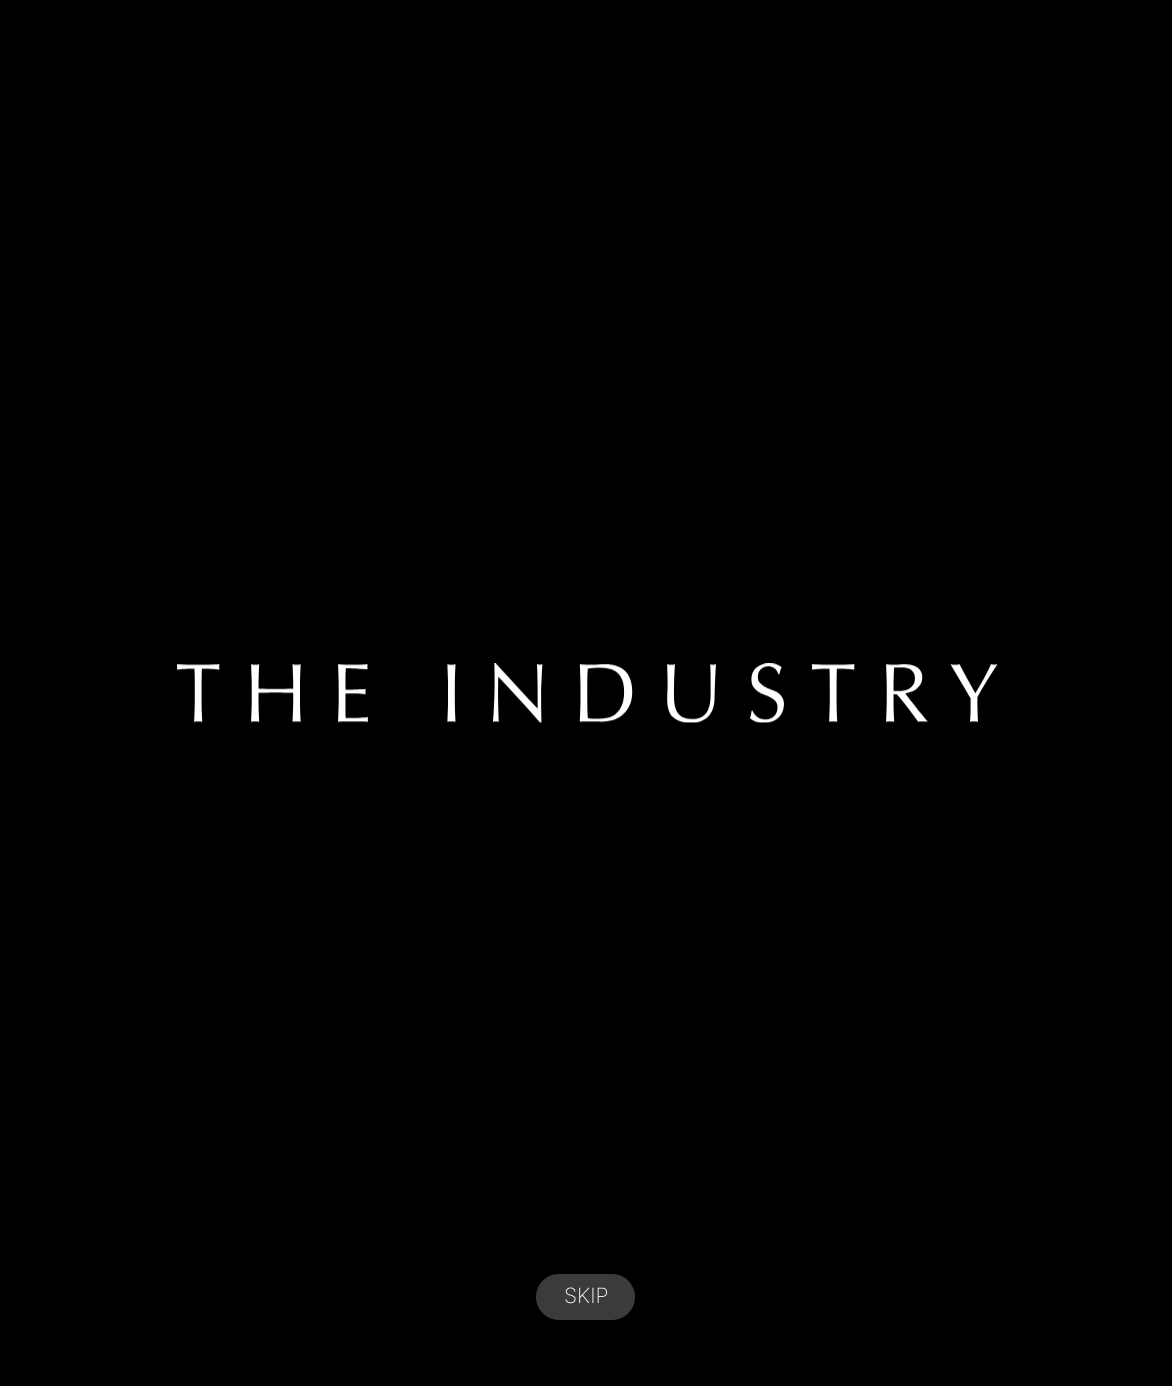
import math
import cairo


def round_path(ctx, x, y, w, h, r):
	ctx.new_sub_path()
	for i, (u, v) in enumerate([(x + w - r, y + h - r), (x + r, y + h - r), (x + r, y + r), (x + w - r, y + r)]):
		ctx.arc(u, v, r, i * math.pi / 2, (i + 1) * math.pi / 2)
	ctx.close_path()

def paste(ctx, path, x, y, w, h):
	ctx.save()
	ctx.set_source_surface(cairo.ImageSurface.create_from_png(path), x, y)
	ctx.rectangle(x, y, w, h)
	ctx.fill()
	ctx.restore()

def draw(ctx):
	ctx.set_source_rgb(0, 0, 0)
	ctx.paint()
	paste(ctx, 'media/1.png', 177, 663, 821, 60)
	ctx.set_source_rgb(0.224, 0.231, 0.235)
	round_path(ctx, 536, 1274, 99, 46, 23)
	ctx.fill()
	ctx.select_font_face('Inter ExtraLight')
	ctx.set_font_size(21)
	ctx.set_source_rgb(1, 1, 1)
	ctx.move_to(564, 1303)
	ctx.show_text('SKIP')


surface = cairo.ImageSurface(cairo.FORMAT_RGB24, 1172, 1386)
ctx = cairo.Context(surface)
options = cairo.FontOptions()
options.set_hint_metrics(cairo.HINT_METRICS_OFF)
options.set_hint_style(cairo.HINT_STYLE_NONE)
ctx.set_font_options(options)
ctx.set_miter_limit(4)
draw(ctx)
surface.write_to_png('image.png')
